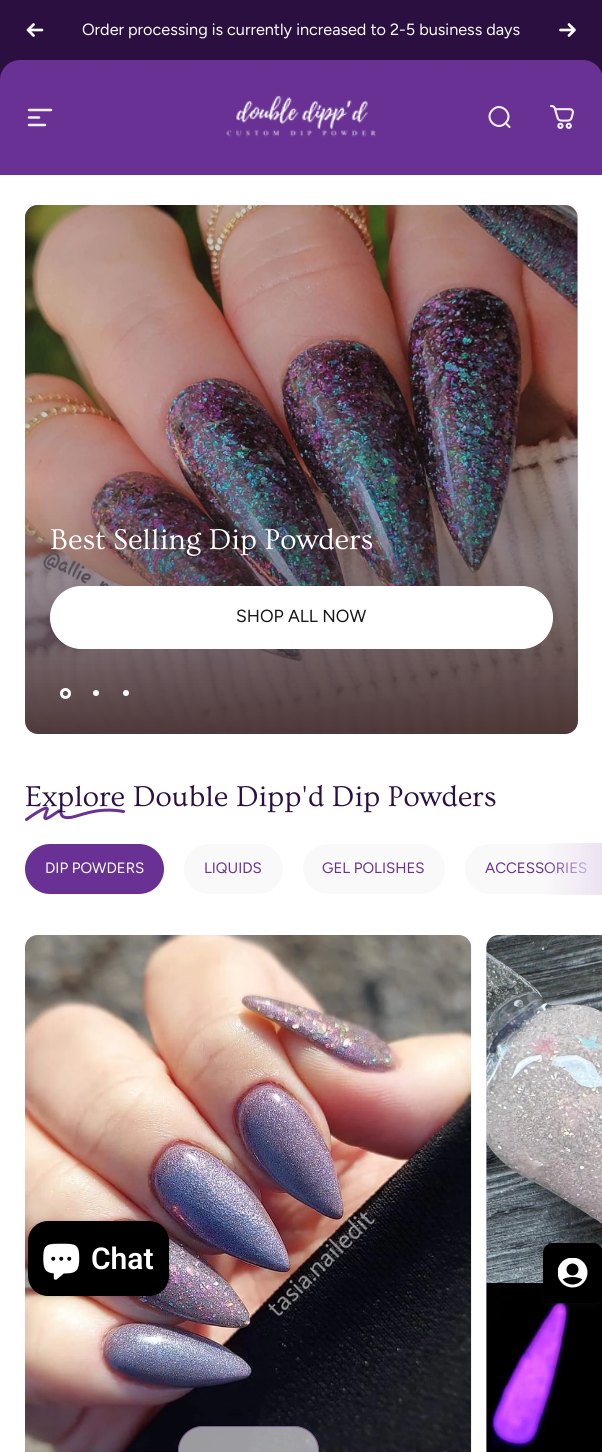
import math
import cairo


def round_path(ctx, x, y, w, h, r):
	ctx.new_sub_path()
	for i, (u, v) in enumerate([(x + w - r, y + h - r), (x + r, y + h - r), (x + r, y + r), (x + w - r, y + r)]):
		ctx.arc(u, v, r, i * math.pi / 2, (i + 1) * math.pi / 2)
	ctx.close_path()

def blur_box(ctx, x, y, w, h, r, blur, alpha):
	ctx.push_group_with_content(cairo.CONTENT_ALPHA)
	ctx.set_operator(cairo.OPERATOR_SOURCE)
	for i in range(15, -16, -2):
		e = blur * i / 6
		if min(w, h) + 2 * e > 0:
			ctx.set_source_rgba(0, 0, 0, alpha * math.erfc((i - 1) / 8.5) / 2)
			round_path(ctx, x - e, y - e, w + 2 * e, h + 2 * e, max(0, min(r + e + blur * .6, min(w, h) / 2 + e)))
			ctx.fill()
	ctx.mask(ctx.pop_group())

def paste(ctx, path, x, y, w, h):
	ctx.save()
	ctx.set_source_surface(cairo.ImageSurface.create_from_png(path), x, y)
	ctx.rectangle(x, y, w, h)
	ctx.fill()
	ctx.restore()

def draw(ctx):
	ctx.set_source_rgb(1, 1, 1)
	ctx.paint()
	ctx.set_source_rgb(0.165, 0.059, 0.251)
	ctx.rectangle(0, 0, 602, 20)
	ctx.fill()
	ctx.new_path()
	ctx.move_to(20, 0)
	ctx.line_to(583, 0)
	ctx.curve_to(594, 0, 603, 9, 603, 20)
	ctx.line_to(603, 80)
	ctx.line_to(0, 80)
	ctx.line_to(0, 20)
	ctx.curve_to(0, 9, 9, 0, 20, 0)
	ctx.close_path()
	ctx.fill()
	ctx.new_path()
	ctx.move_to(33.5, 24.5)
	ctx.line_to(28, 30)
	ctx.move_to(28, 30)
	ctx.line_to(33.5, 35.5)
	ctx.move_to(28, 30)
	ctx.line_to(42, 30)
	ctx.set_source_rgb(1, 1, 1)
	ctx.set_line_width(2.7)
	ctx.set_line_cap(cairo.LINE_CAP_ROUND)
	ctx.set_line_join(cairo.LINE_JOIN_ROUND)
	ctx.stroke()
	ctx.select_font_face('Figtree Light')
	ctx.set_font_size(16.25)
	ctx.move_to(82, 35)
	ctx.show_text('Order processing is currently increased to 2-5 business days')
	ctx.new_path()
	ctx.move_to(560.5, 30)
	ctx.line_to(574.5, 30)
	ctx.move_to(574.5, 30)
	ctx.line_to(569, 24.5)
	ctx.move_to(574.5, 30)
	ctx.line_to(569, 35.5)
	ctx.stroke()
	ctx.set_source_rgb(0.408, 0.192, 0.576)
	ctx.new_path()
	ctx.move_to(20, 60)
	ctx.line_to(583, 60)
	ctx.curve_to(594, 60, 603, 69, 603, 80)
	ctx.line_to(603, 175)
	ctx.line_to(0, 175)
	ctx.line_to(0, 80)
	ctx.curve_to(0, 69, 9, 60, 20, 60)
	ctx.close_path()
	ctx.fill()
	ctx.new_path()
	ctx.move_to(29, 110)
	ctx.line_to(51, 110)
	ctx.move_to(29, 117.5)
	ctx.line_to(39, 117.5)
	ctx.move_to(29, 125)
	ctx.line_to(45, 125)
	ctx.set_source_rgb(0.953, 0.937, 0.961)
	ctx.set_line_width(2.5)
	ctx.set_line_join(cairo.LINE_JOIN_MITER)
	ctx.stroke()
	paste(ctx, 'media/1.png', 226, 95, 150, 42)
	ctx.new_path()
	ctx.move_to(509.5, 127)
	ctx.line_to(505.5, 123)
	ctx.move_to(505.5, 123)
	ctx.curve_to(514.5, 114.5, 501, 101, 492.5, 110)
	ctx.curve_to(483.5, 118.5, 497, 132, 505.5, 123)
	ctx.close_path()
	ctx.set_line_width(2.1)
	ctx.stroke()
	paste(ctx, 'media/2.png', 550, 105, 24, 24)
	ctx.set_source_rgb(0.922, 0.89, 0.945)
	round_path(ctx, 25, 205, 553, 529, 13)
	ctx.fill()
	paste(ctx, 'media/3.png', 25, 205, 553, 529)
	gradient = cairo.LinearGradient(301, 205, 301, 754)
	gradient.add_color_stop_rgba(0.5, 0.275, 0.184, 0.184, 0.25)
	gradient.add_color_stop_rgba(1, 0.275, 0.184, 0.184, 1)
	ctx.set_source(gradient)
	round_path(ctx, 25, 205, 553, 529, 13)
	ctx.fill()
	ctx.select_font_face('Ovo')
	ctx.set_font_size(30)
	ctx.set_source_rgb(1, 1, 1)
	ctx.move_to(50, 549)
	ctx.show_text('Best Selling Dip Powders')
	round_path(ctx, 50.5, 586.5, 502, 62, 31)
	ctx.fill_preserve()
	ctx.set_line_width(1)
	ctx.set_line_cap(cairo.LINE_CAP_BUTT)
	ctx.stroke()
	ctx.select_font_face('Figtree Light')
	ctx.set_font_size(17.5)
	ctx.set_source_rgb(0.09, 0.09, 0.09)
	ctx.move_to(236, 622)
	ctx.show_text('SHOP ALL NOW')
	ctx.new_path()
	ctx.arc(65.5, 693.5, 4, 0, 2 * math.pi)
	ctx.set_source_rgb(1, 1, 1)
	ctx.set_line_width(3)
	ctx.stroke()
	ctx.arc(96, 693, 3, 0, 2 * math.pi)
	ctx.fill()
	ctx.arc(126, 693, 3, 0, 2 * math.pi)
	ctx.fill()
	ctx.new_path()
	ctx.move_to(26.5, 819.5)
	ctx.curve_to(26.5, 819.5, 50.5, 802, 47, 810.5)
	ctx.curve_to(43.5, 819, 42.5, 822.5, 56.5, 812.5)
	ctx.curve_to(65, 806.5, 55.5, 819, 70, 817.5)
	ctx.curve_to(79.5, 816.5, 96, 806.5, 123.5, 811.5)
	ctx.set_source_rgb(0.408, 0.192, 0.576)
	ctx.set_line_cap(cairo.LINE_CAP_ROUND)
	ctx.stroke()
	ctx.select_font_face('Ovo')
	ctx.set_font_size(30)
	ctx.set_source_rgb(0.165, 0.059, 0.251)
	ctx.move_to(25, 806)
	ctx.show_text('Explore')
	ctx.move_to(133, 806)
	ctx.show_text('Double Dipp\'d Dip Powders')
	ctx.set_source_rgb(0.98, 0.976, 0.98)
	round_path(ctx, 465, 844, 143, 50, 25)
	ctx.fill()
	ctx.select_font_face('Figtree Light')
	ctx.set_font_size(15)
	ctx.set_source_rgb(0.408, 0.192, 0.576)
	ctx.move_to(485, 873)
	ctx.show_text('ACCESSORIES')
	gradient = cairo.LinearGradient(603, 869, 543, 869)
	gradient.add_color_stop_rgba(0, 0.922, 0.89, 0.945, 1)
	gradient.add_color_stop_rgba(1, 0.922, 0.89, 0.945, 0)
	ctx.set_source(gradient)
	ctx.rectangle(544, 843, 58, 52)
	ctx.fill()
	ctx.set_source_rgb(0.408, 0.192, 0.576)
	round_path(ctx, 25, 844, 139, 50, 25)
	ctx.fill()
	ctx.set_source_rgb(1, 1, 1)
	ctx.move_to(45, 873)
	ctx.show_text('DIP POWDERS')
	ctx.set_source_rgb(0.98, 0.976, 0.98)
	round_path(ctx, 184, 844, 99, 50, 25)
	ctx.fill()
	ctx.set_source_rgb(0.408, 0.192, 0.576)
	ctx.move_to(204, 873)
	ctx.show_text('LIQUIDS')
	ctx.set_source_rgb(0.98, 0.976, 0.98)
	round_path(ctx, 303, 844, 142, 50, 25)
	ctx.fill()
	ctx.set_source_rgb(0.408, 0.192, 0.576)
	ctx.move_to(322, 873)
	ctx.show_text('GEL POLISHES')
	paste(ctx, 'media/4.png', 25, 935, 447, 517)
	ctx.set_source_rgba(1, 1, 1, 0.6)
	round_path(ctx, 178, 1426, 141, 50, 25)
	ctx.fill()
	round_path(ctx, 178.5, 1426.5, 140, 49, 24.5)
	ctx.set_source_rgba(0.408, 0.192, 0.576, 0.6)
	ctx.set_line_width(1)
	ctx.set_line_cap(cairo.LINE_CAP_BUTT)
	ctx.stroke()
	ctx.set_source_rgb(0.922, 0.89, 0.945)
	ctx.new_path()
	ctx.move_to(499, 935)
	ctx.line_to(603, 935)
	ctx.line_to(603, 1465)
	ctx.line_to(486, 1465)
	ctx.line_to(486, 948)
	ctx.curve_to(486, 941, 492, 935, 499, 935)
	ctx.close_path()
	ctx.fill()
	paste(ctx, 'media/5.png', 486, 935, 116, 517)
	ctx.set_source_rgb(0, 0, 0)
	blur_box(ctx, 28, 1221, 141, 75, 20, 3, 0.15)
	ctx.set_source_rgb(0, 0, 0)
	round_path(ctx, 28, 1221, 141, 75, 20)
	ctx.fill()
	paste(ctx, 'media/6.png', 43, 1243, 37, 37)
	ctx.select_font_face('Roboto SemiBold')
	ctx.set_font_size(30)
	ctx.set_source_rgb(1, 1, 1)
	ctx.move_to(91, 1269)
	ctx.show_text('Chat')
	ctx.set_source_rgb(0.216, 0.247, 0.278)
	blur_box(ctx, 543, 1248, 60, 60, 10, 2.5, 0.08)
	ctx.rectangle(541.5, 1241.5, 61, 62)
	ctx.set_source_rgba(0.216, 0.247, 0.278, 0.04)
	ctx.stroke()
	ctx.set_source_rgb(0, 0, 0)
	round_path(ctx, 543, 1243, 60, 60, 10)
	ctx.fill()
	paste(ctx, 'media/7.png', 558, 1258, 30, 30)


surface = cairo.ImageSurface(cairo.FORMAT_RGB24, 602, 1452)
ctx = cairo.Context(surface)
options = cairo.FontOptions()
options.set_hint_metrics(cairo.HINT_METRICS_OFF)
options.set_hint_style(cairo.HINT_STYLE_NONE)
ctx.set_font_options(options)
ctx.set_miter_limit(4)
draw(ctx)
surface.write_to_png('image.png')
